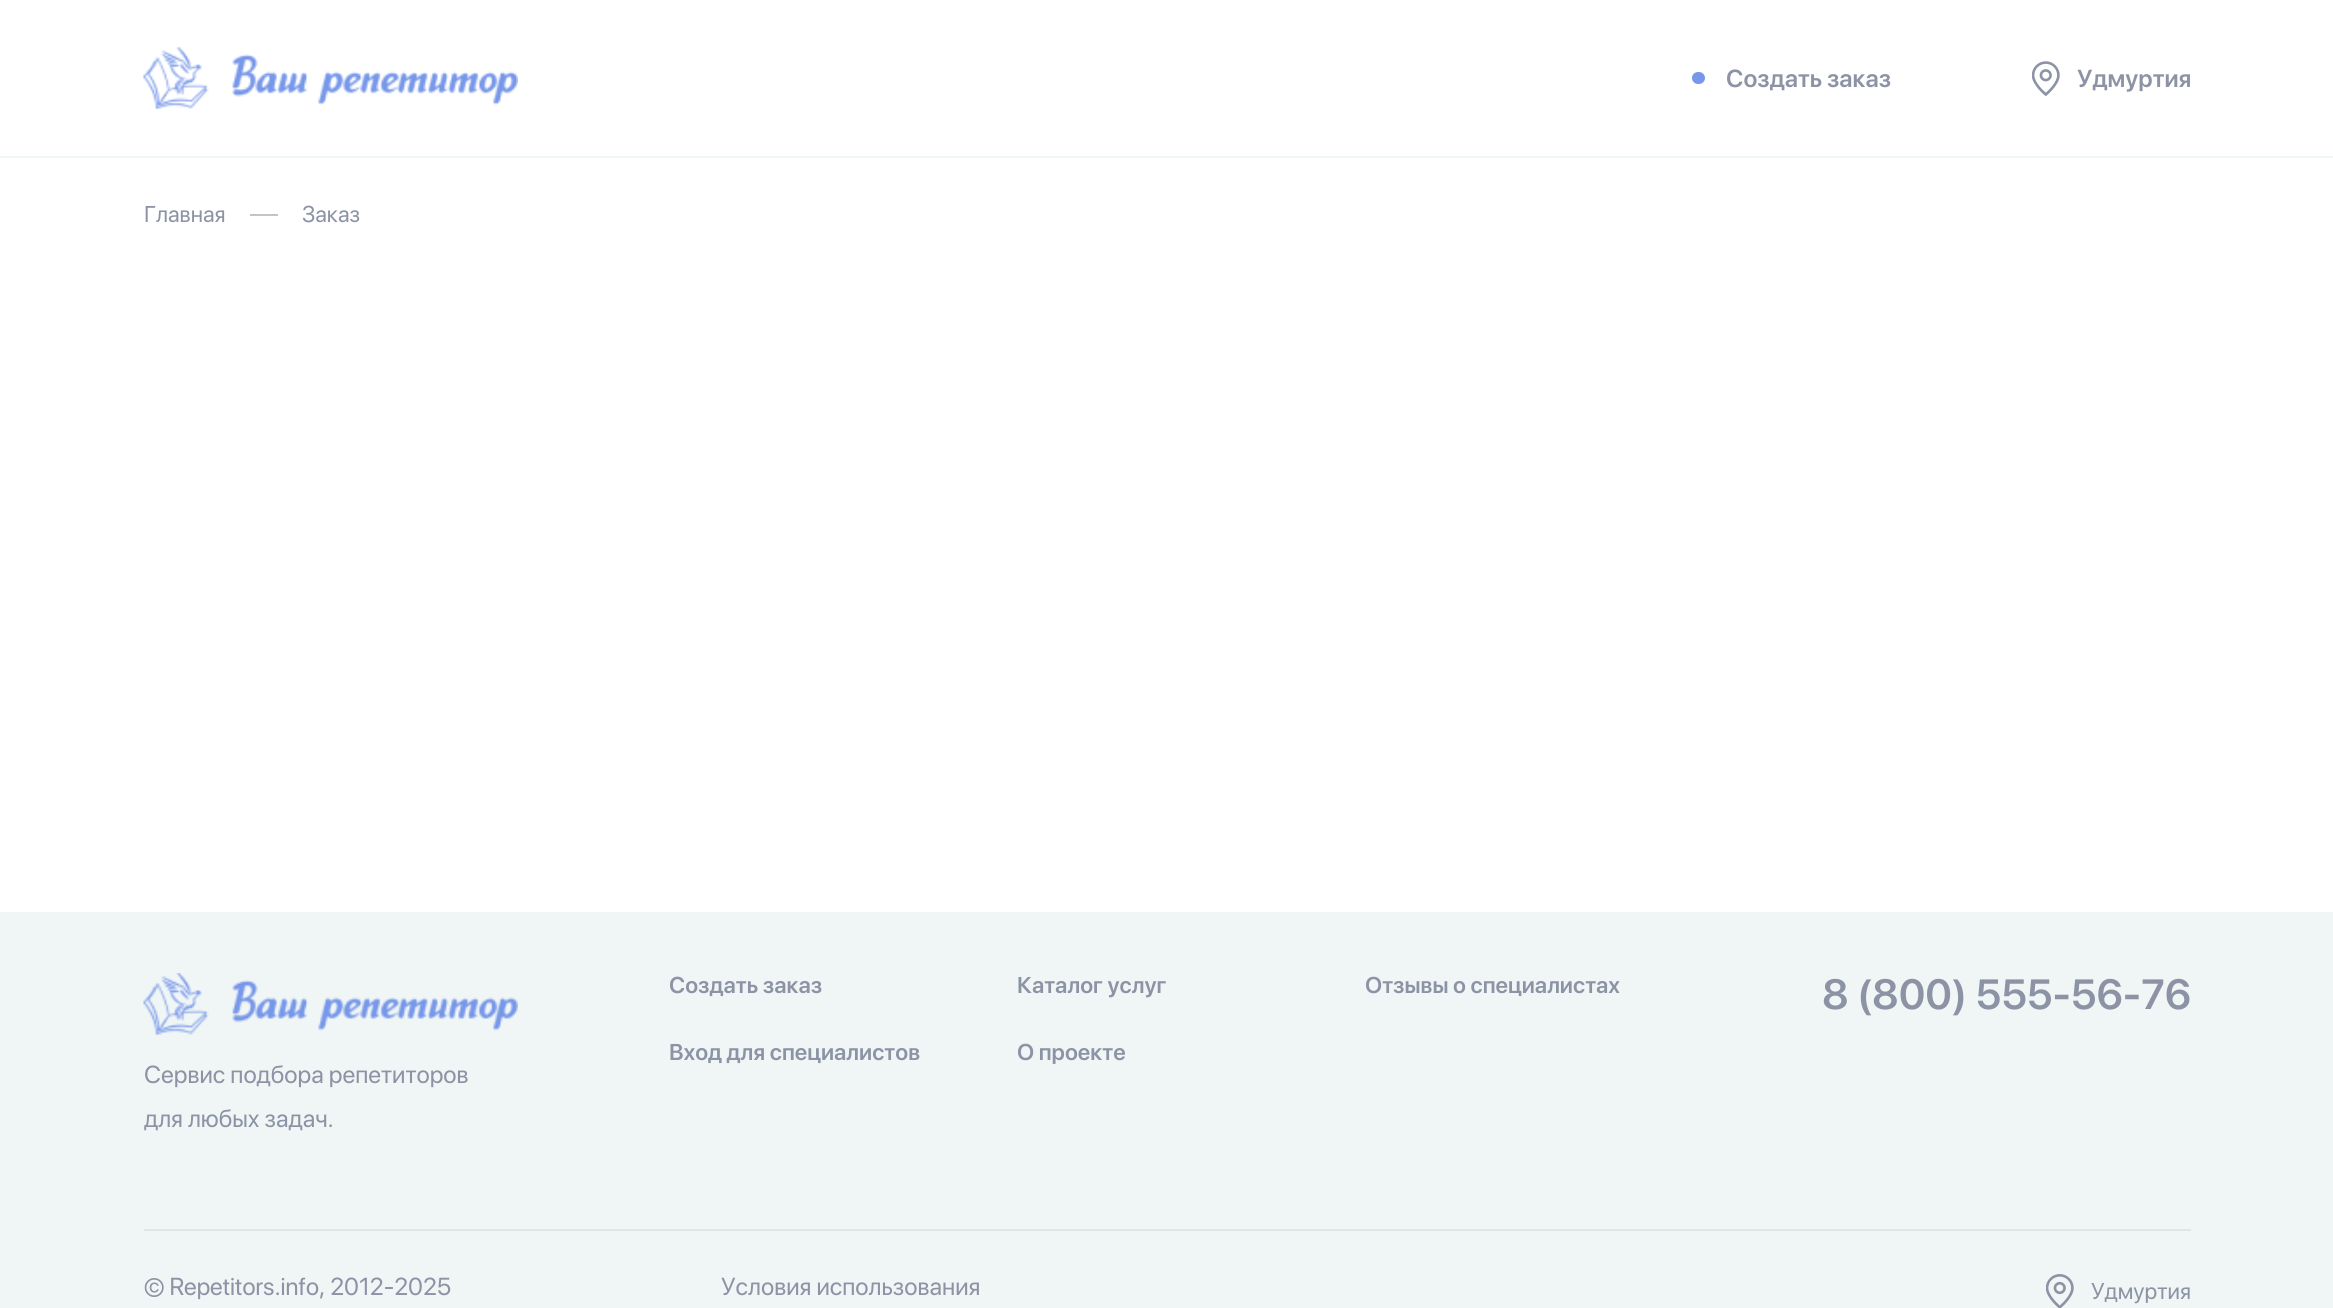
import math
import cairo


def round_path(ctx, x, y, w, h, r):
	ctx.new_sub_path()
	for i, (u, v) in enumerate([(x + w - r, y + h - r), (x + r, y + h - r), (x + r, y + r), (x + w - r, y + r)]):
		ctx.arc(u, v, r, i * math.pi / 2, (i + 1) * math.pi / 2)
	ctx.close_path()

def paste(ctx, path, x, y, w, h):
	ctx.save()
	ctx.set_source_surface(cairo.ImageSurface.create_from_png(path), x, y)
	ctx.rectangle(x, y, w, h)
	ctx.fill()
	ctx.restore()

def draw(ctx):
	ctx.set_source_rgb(1, 1, 1)
	ctx.paint()
	ctx.set_source_rgb(0.941, 0.961, 0.961)
	ctx.rectangle(0, 156, 2333, 2)
	ctx.fill()
	paste(ctx, 'media/1.png', 143, 46, 375, 64)
	ctx.set_source_rgb(0.467, 0.592, 0.914)
	round_path(ctx, 1692, 72, 13, 12, 6)
	ctx.fill()
	ctx.select_font_face('SF Pro Display SemiBold')
	ctx.set_font_size(24.5)
	ctx.set_source_rgb(0.545, 0.576, 0.647)
	ctx.move_to(1726, 87)
	ctx.show_text('Создать заказ')
	paste(ctx, 'media/2.png', 2032, 61, 28, 35)
	ctx.move_to(2077, 87)
	ctx.show_text('Удмуртия')
	ctx.select_font_face('SF Pro Display')
	ctx.set_font_size(22.75)
	ctx.move_to(144, 222)
	ctx.show_text('Главная')
	ctx.set_source_rgb(0.769, 0.769, 0.769)
	ctx.rectangle(250, 214, 28, 2)
	ctx.fill()
	ctx.set_source_rgb(0.545, 0.576, 0.647)
	ctx.move_to(302, 222)
	ctx.show_text('Заказ')
	ctx.set_source_rgb(0.941, 0.961, 0.961)
	ctx.rectangle(0, 912, 2333, 396)
	ctx.fill()
	ctx.select_font_face('SF Pro Display SemiBold')
	ctx.set_source_rgb(0.545, 0.576, 0.647)
	for x, y, s in [
		(669, 993, 'Создать заказ'),
		(1017, 993, 'Каталог услуг'),
		(1365, 993, 'Отзывы о специалистах'),
		(669, 1060, 'Вход для специалистов'),
		(1017, 1060, 'О проекте'),
	]:
		ctx.move_to(x, y)
		ctx.show_text(s)
	ctx.set_font_size(42)
	ctx.move_to(1822, 1009)
	ctx.show_text('8 (800) 555-56-76')
	paste(ctx, 'media/3.png', 143, 973, 375, 63)
	ctx.select_font_face('SF Pro Display')
	ctx.set_font_size(24.5)
	ctx.move_to(144, 1083)
	ctx.show_text('Сервис подбора репетиторов')
	ctx.move_to(144, 1127)
	ctx.show_text('для любых задач.')
	ctx.set_source_rgb(0.886, 0.898, 0.906)
	ctx.rectangle(144, 1229, 2047, 2)
	ctx.fill()
	ctx.set_source_rgb(0.545, 0.576, 0.647)
	ctx.move_to(144, 1295)
	ctx.show_text('© Repetitors.info, 2012-2025')
	ctx.move_to(721, 1295)
	ctx.show_text('Условия использования')
	paste(ctx, 'media/4.png', 2046, 1274, 28, 34)
	ctx.set_font_size(22.75)
	ctx.move_to(2091, 1299)
	ctx.show_text('Удмуртия')


surface = cairo.ImageSurface(cairo.FORMAT_RGB24, 2333, 1308)
ctx = cairo.Context(surface)
options = cairo.FontOptions()
options.set_hint_metrics(cairo.HINT_METRICS_OFF)
options.set_hint_style(cairo.HINT_STYLE_NONE)
ctx.set_font_options(options)
ctx.set_miter_limit(4)
draw(ctx)
surface.write_to_png('image.png')
